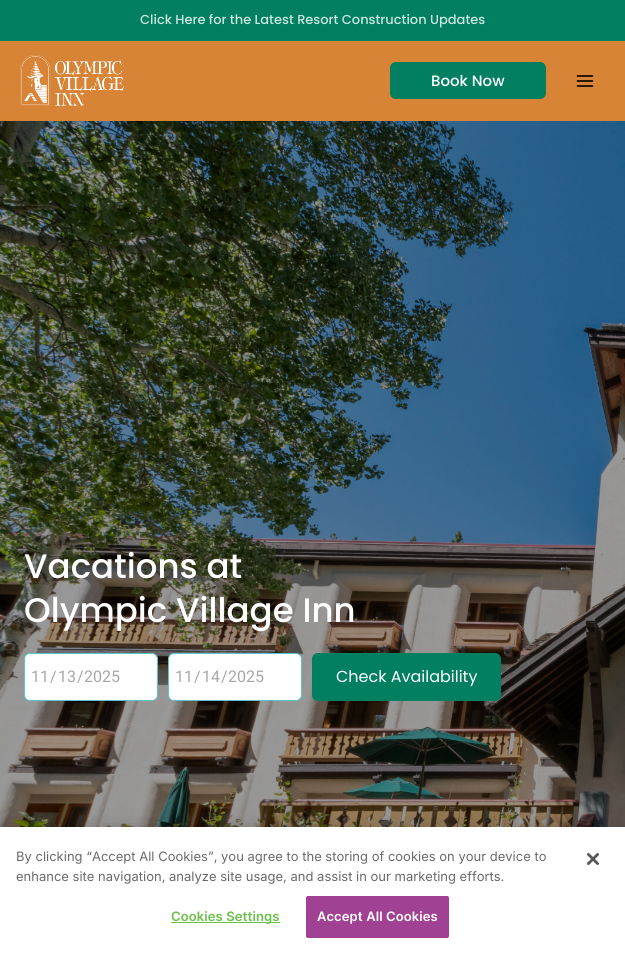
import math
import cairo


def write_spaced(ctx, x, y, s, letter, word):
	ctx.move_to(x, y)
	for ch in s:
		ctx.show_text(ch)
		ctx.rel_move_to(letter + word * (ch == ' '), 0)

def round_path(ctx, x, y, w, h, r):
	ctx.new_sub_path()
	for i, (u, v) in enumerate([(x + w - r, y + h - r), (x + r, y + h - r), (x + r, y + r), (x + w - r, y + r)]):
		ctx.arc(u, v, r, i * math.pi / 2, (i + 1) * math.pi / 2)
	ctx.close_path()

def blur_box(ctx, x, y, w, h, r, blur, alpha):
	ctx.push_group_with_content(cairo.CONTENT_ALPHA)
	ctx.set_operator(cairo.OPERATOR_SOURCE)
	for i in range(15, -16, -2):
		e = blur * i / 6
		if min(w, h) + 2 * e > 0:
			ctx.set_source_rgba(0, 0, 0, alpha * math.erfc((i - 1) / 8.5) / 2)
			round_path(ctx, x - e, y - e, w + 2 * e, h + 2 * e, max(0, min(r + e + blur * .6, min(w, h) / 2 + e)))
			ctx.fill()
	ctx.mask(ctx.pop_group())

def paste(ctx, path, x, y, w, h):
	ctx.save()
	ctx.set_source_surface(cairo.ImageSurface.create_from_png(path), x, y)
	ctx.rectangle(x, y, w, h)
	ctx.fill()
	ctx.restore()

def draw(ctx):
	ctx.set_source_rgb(1, 1, 1)
	ctx.paint()
	ctx.set_source_rgb(0, 0.502, 0.38)
	ctx.rectangle(0, 0, 625, 41)
	ctx.fill()
	ctx.select_font_face('Poppins Medium')
	ctx.set_font_size(13)
	ctx.set_source_rgb(0.8, 0.902, 0.875)
	ctx.move_to(140, 24)
	ctx.show_text('Click Here for the Latest Resort Construction Updates')
	ctx.set_source_rgb(0.843, 0.518, 0.216)
	ctx.rectangle(0, 41, 625, 80)
	ctx.fill()
	paste(ctx, 'media/1.png', 20, 55, 104, 51)
	ctx.set_source_rgb(0, 0.502, 0.38)
	round_path(ctx, 390.5, 62.5, 155, 36, 5.5)
	ctx.fill_preserve()
	ctx.set_line_width(1)
	ctx.stroke()
	ctx.set_font_size(15)
	ctx.set_source_rgb(1, 1, 1)
	ctx.move_to(431, 86)
	ctx.show_text('Book Now')
	paste(ctx, 'media/2.png', 576, 75, 18, 12)
	paste(ctx, 'media/3.png', 0, 121, 625, 706)
	ctx.set_font_size(34)
	ctx.move_to(24, 578)
	ctx.show_text('Vacations at')
	ctx.move_to(24, 622)
	ctx.show_text('Olympic Village Inn')
	round_path(ctx, 24.5, 653.5, 133, 47, 5.5)
	ctx.fill_preserve()
	ctx.set_source_rgb(0.353, 0.773, 0.769)
	ctx.stroke()
	ctx.select_font_face('Roboto')
	ctx.set_font_size(16)
	ctx.set_source_rgb(0.659, 0.659, 0.659)
	for x, y, s in [
		(31, 682, '11'),
		(50, 682, '/'),
		(58, 682, '13'),
		(77, 682, '/'),
		(84, 682, '2025'),
	]:
		ctx.move_to(x, y)
		ctx.show_text(s)
	ctx.set_source_rgb(1, 1, 1)
	round_path(ctx, 168.5, 653.5, 133, 47, 5.5)
	ctx.fill_preserve()
	ctx.set_source_rgb(0.353, 0.773, 0.769)
	ctx.stroke()
	ctx.set_source_rgb(0.659, 0.659, 0.659)
	for x, y, s in [
		(175, 682, '11'),
		(194, 682, '/'),
		(202, 682, '14'),
		(221, 682, '/'),
		(228, 682, '2025'),
	]:
		ctx.move_to(x, y)
		ctx.show_text(s)
	ctx.set_source_rgb(0, 0.502, 0.38)
	round_path(ctx, 312.5, 653.5, 188, 47, 5.5)
	ctx.fill_preserve()
	ctx.stroke()
	ctx.select_font_face('Poppins')
	ctx.set_source_rgb(1, 1, 1)
	ctx.move_to(336, 682)
	ctx.show_text('Check Availability')
	ctx.set_source_rgb(0, 0, 0)
	blur_box(ctx, 0, 827, 625, 128, 0, 9, 0.2)
	ctx.set_source_rgb(1, 1, 1)
	ctx.rectangle(0, 827, 625, 128)
	ctx.fill()
	ctx.select_font_face('Inter')
	ctx.set_font_size(13)
	ctx.set_source_rgb(0.412, 0.412, 0.412)
	ctx.move_to(16, 861)
	ctx.show_text('By clicking “Accept All Cookies”, you agree to the storing of cookies on your device to')
	ctx.move_to(16, 881)
	ctx.show_text('enhance site navigation, analyze site usage, and assist in our marketing efforts.')
	ctx.set_source_rgb(0.424, 0.753, 0.29)
	ctx.rectangle(171, 922, 109, 1)
	ctx.fill()
	ctx.select_font_face('Inter SemiBold')
	write_spaced(ctx, 171, 921, 'Cookies Settings', 0.1, 0)
	ctx.set_source_rgb(0.631, 0.255, 0.576)
	round_path(ctx, 306.5, 896.5, 142, 41, 1.5)
	ctx.fill_preserve()
	ctx.stroke()
	ctx.set_source_rgb(1, 1, 1)
	write_spaced(ctx, 317, 921, 'Accept All Cookies', 0.1, 0)
	paste(ctx, 'media/4.png', 587, 853, 12, 12)


surface = cairo.ImageSurface(cairo.FORMAT_RGB24, 625, 955)
ctx = cairo.Context(surface)
options = cairo.FontOptions()
options.set_hint_metrics(cairo.HINT_METRICS_OFF)
options.set_hint_style(cairo.HINT_STYLE_NONE)
ctx.set_font_options(options)
ctx.set_miter_limit(4)
draw(ctx)
surface.write_to_png('image.png')
